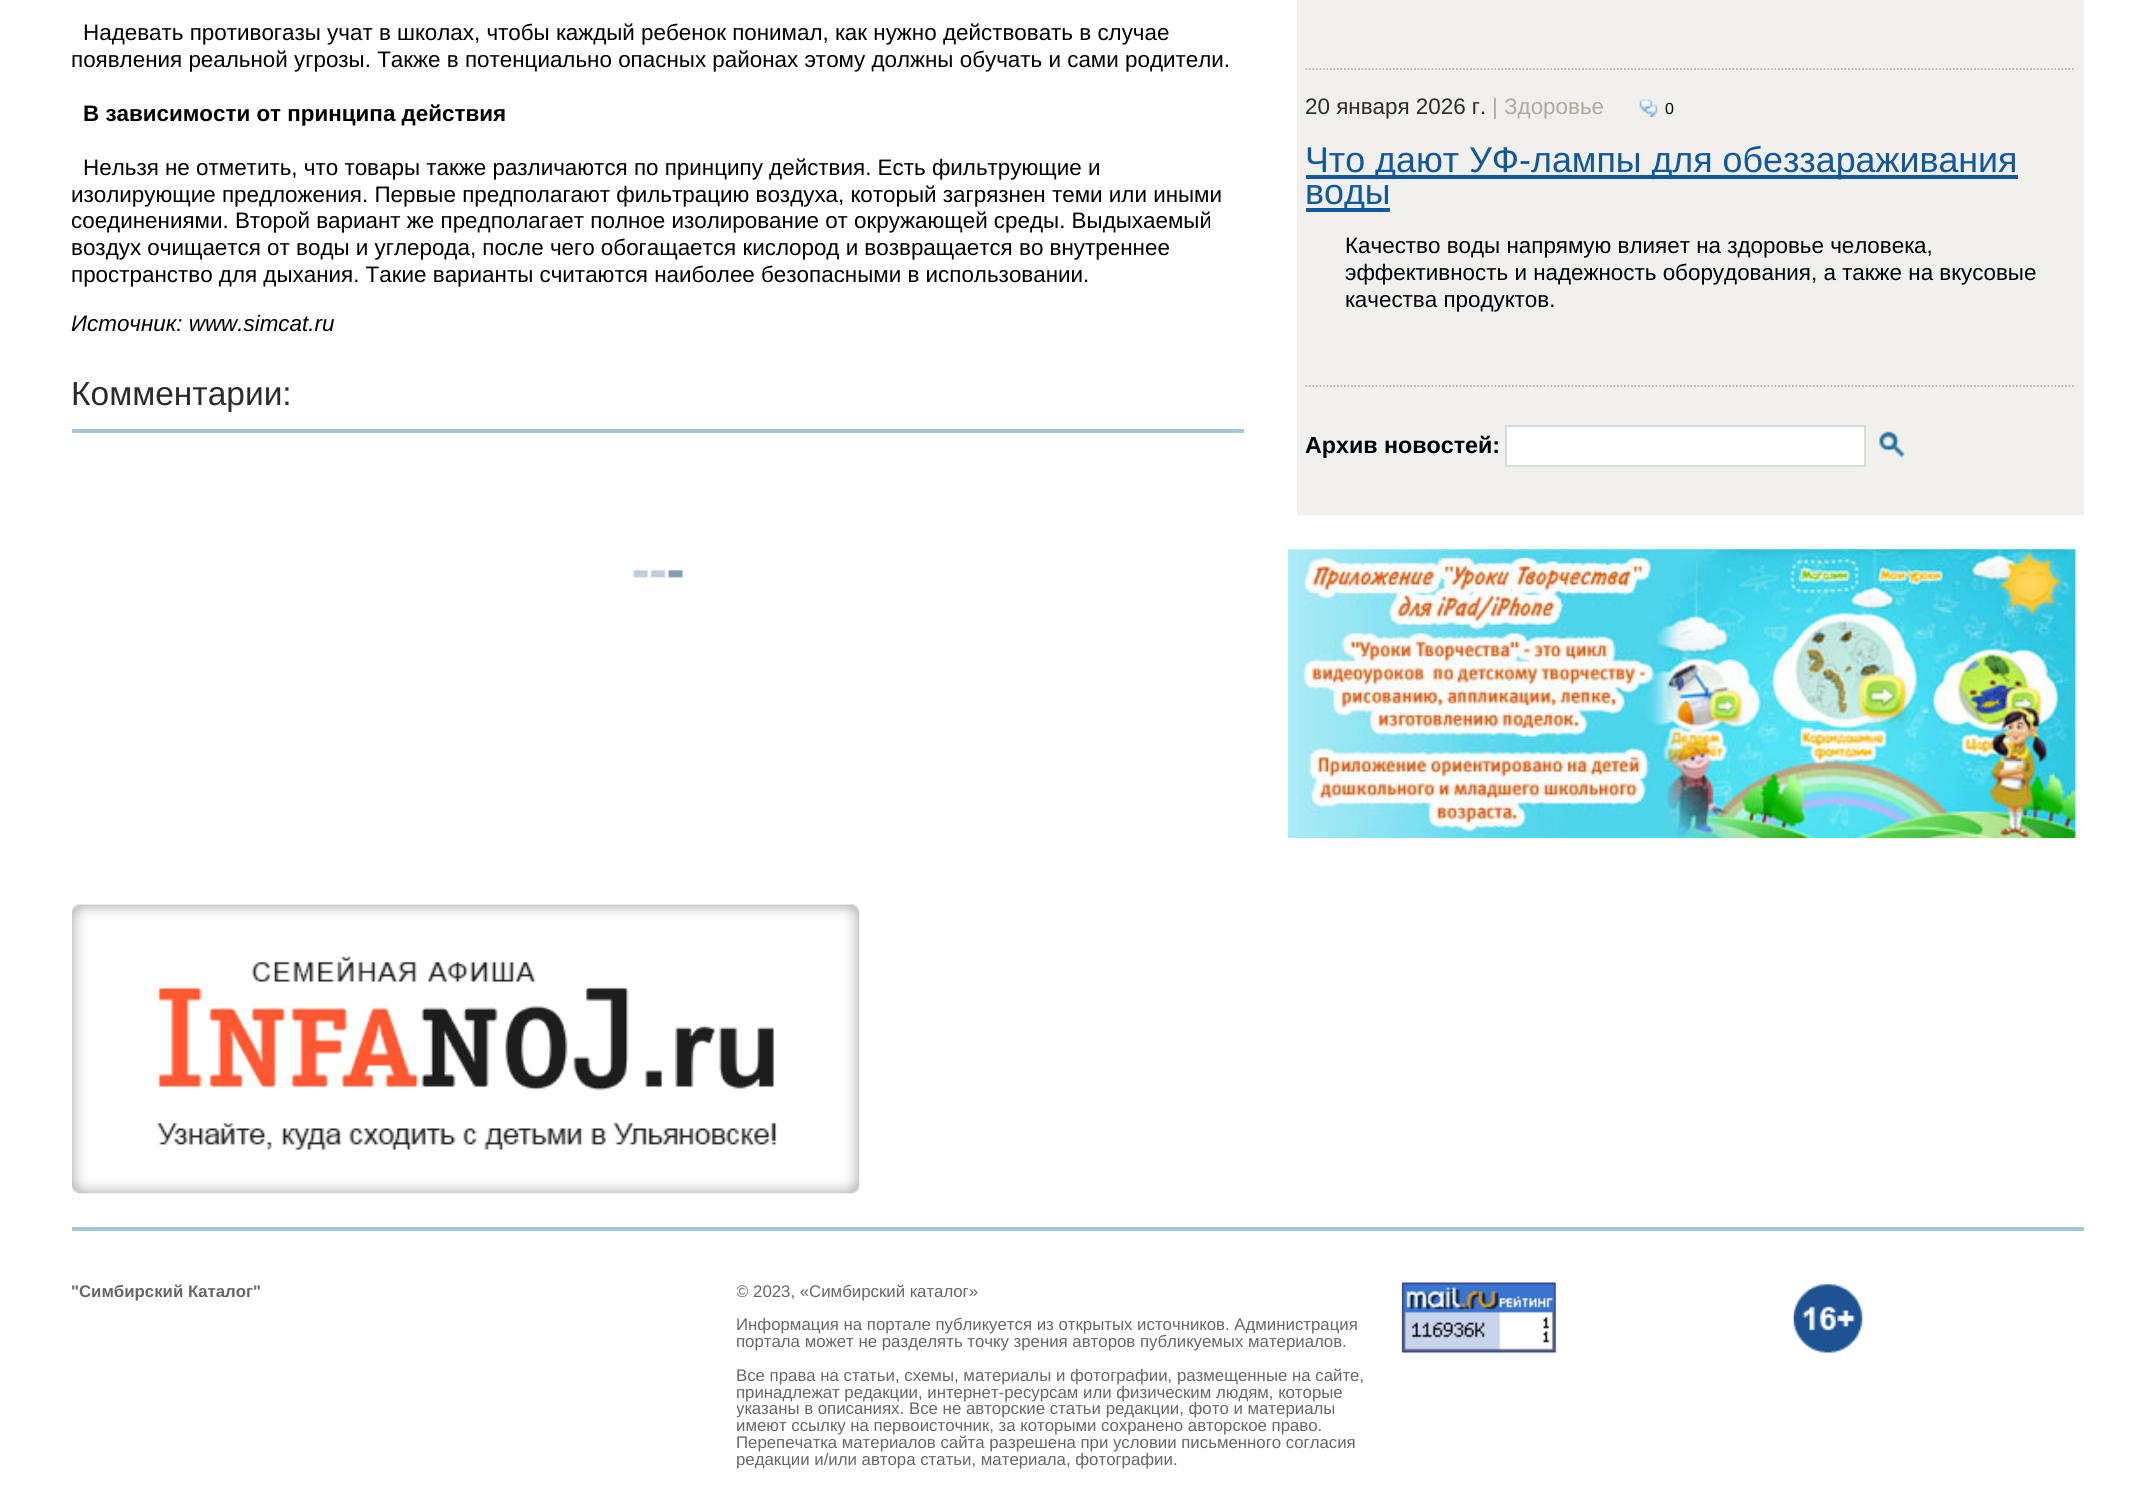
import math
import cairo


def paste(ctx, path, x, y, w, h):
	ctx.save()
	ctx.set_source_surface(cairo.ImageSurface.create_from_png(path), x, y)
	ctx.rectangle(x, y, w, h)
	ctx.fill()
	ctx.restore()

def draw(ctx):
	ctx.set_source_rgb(1, 1, 1)
	ctx.paint()
	ctx.select_font_face('Liberation Sans')
	ctx.set_font_size(22.4)
	ctx.set_source_rgb(0, 0, 0)
	ctx.move_to(83, 40)
	ctx.show_text('Надевать противогазы учат в школах, чтобы каждый ребенок понимал, как нужно действовать в случае')
	ctx.move_to(71, 67)
	ctx.show_text('появления реальной угрозы. Также в потенциально опасных районах этому должны обучать и сами родители.')
	ctx.select_font_face('Liberation Sans', cairo.FONT_SLANT_NORMAL, cairo.FONT_WEIGHT_BOLD)
	ctx.move_to(83, 121)
	ctx.show_text('В зависимости от принципа действия')
	ctx.select_font_face('Liberation Sans')
	ctx.move_to(83, 175)
	ctx.show_text('Нельзя не отметить, что товары также различаются по принципу действия. Есть фильтрующие и')
	ctx.move_to(71, 202)
	ctx.show_text('изолирующие предложения. Первые предполагают фильтрацию воздуха, который загрязнен теми или иными')
	ctx.save()
	ctx.rectangle(72, 0, 2012, 1227)
	ctx.clip()
	ctx.move_to(71, 228)
	ctx.show_text('соединениями. Второй вариант же предполагает полное изолирование от окружающей среды. Выдыхаемый')
	ctx.restore()
	ctx.move_to(71, 255)
	ctx.show_text('воздух очищается от воды и углерода, после чего обогащается кислород и возвращается во внутреннее')
	ctx.move_to(71, 282)
	ctx.show_text('пространство для дыхания. Такие варианты считаются наиболее безопасными в использовании.')
	ctx.select_font_face('Liberation Sans', cairo.FONT_SLANT_ITALIC)
	ctx.move_to(71, 331)
	ctx.show_text('Источник: www.simcat.ru')
	ctx.set_source_rgb(0.655, 0.78, 0.839)
	ctx.rectangle(72, 429, 1172, 4)
	ctx.fill()
	ctx.select_font_face('Liberation Sans')
	ctx.set_font_size(33.5)
	ctx.set_source_rgb(0.169, 0.169, 0.169)
	ctx.move_to(71, 405)
	ctx.show_text('Комментарии:')
	paste(ctx, 'media/1.png', 633, 569, 50, 9)
	ctx.set_source_rgb(0.949, 0.941, 0.922)
	ctx.rectangle(1297, 0, 787, 515)
	ctx.fill()
	ctx.new_path()
	ctx.move_to(1305.5, 69)
	ctx.line_to(2075.5, 69)
	ctx.set_source_rgb(0.718, 0.714, 0.702)
	ctx.set_line_width(1.8)
	ctx.set_dash([1.75, 1.75])
	ctx.stroke()
	ctx.new_path()
	ctx.move_to(1305.5, 386)
	ctx.line_to(2075.5, 386)
	ctx.stroke()
	ctx.set_font_size(22.4)
	ctx.set_source_rgb(0.169, 0.169, 0.169)
	ctx.move_to(1305, 114)
	ctx.show_text('20 января 2026 г.')
	ctx.set_source_rgb(0.675, 0.667, 0.639)
	ctx.move_to(1492, 114)
	ctx.show_text('| Здоровье')
	paste(ctx, 'media/2.png', 1639, 99, 19, 18)
	ctx.set_font_size(16)
	ctx.set_source_rgb(0, 0, 0)
	ctx.move_to(1665, 114)
	ctx.show_text('0')
	ctx.set_source_rgb(0.059, 0.345, 0.616)
	ctx.rectangle(1306, 175, 712, 4)
	ctx.fill()
	ctx.set_font_size(35.8)
	ctx.move_to(1305, 172)
	ctx.show_text('Что дают УФ-лампы для обеззараживания')
	ctx.rectangle(1306, 208, 84, 4)
	ctx.fill()
	ctx.move_to(1305, 204)
	ctx.show_text('воды')
	ctx.set_font_size(22.4)
	ctx.set_source_rgb(0, 0, 0)
	for x, y, s in [
		(1345, 253, 'Качество воды напрямую влияет на здоровье человека,'),
		(1345, 280, 'эффективность и надежность оборудования, а также на вкусовые'),
		(1345, 307, 'качества продуктов.'),
	]:
		ctx.move_to(x, y)
		ctx.show_text(s)
	ctx.select_font_face('Liberation Sans', cairo.FONT_SLANT_NORMAL, cairo.FONT_WEIGHT_BOLD)
	ctx.set_font_size(23.25)
	ctx.move_to(1305, 453)
	ctx.show_text('Архив новостей:')
	ctx.set_source_rgb(1, 1, 1)
	ctx.rectangle(1506, 426, 359, 40)
	ctx.fill_preserve()
	ctx.set_source_rgb(0.863, 0.855, 0.855)
	ctx.set_line_width(2)
	ctx.set_dash([])
	ctx.stroke()
	paste(ctx, 'media/3.png', 1879, 431, 26, 28)
	paste(ctx, 'media/4.png', 1288, 549, 788, 289)
	paste(ctx, 'media/5.png', 72, 904, 788, 290)
	ctx.set_source_rgb(0.655, 0.78, 0.839)
	ctx.rectangle(72, 1227, 2012, 4)
	ctx.fill()
	ctx.set_font_size(16.8)
	ctx.set_source_rgb(0.4, 0.4, 0.4)
	ctx.move_to(71, 1297)
	ctx.show_text('"Симбирский Каталог"')
	ctx.save()
	ctx.rectangle(737, 1265, 665, 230)
	ctx.clip()
	ctx.select_font_face('Liberation Sans')
	ctx.move_to(736, 1297)
	ctx.show_text('© 2023, «Симбирский каталог»')
	ctx.restore()
	ctx.select_font_face('Liberation Sans')
	for x, y, s in [
		(736, 1330, 'Информация на портале публикуется из открытых источников. Администрация'),
		(736, 1347, 'портала может не разделять точку зрения авторов публикуемых материалов.'),
		(736, 1381, 'Все права на статьи, схемы, материалы и фотографии, размещенные на сайте,'),
		(736, 1398, 'принадлежат редакции, интернет-ресурсам или физическим людям, которые'),
	]:
		ctx.move_to(x, y)
		ctx.show_text(s)
	ctx.save()
	ctx.rectangle(737, 1265, 665, 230)
	ctx.clip()
	ctx.move_to(736, 1414)
	ctx.show_text('указаны в описаниях.')
	ctx.restore()
	for x, y, s in [
		(909, 1414, 'Все не авторские статьи редакции, фото и материалы'),
		(736, 1431, 'имеют ссылку на первоисточник, за которыми сохранено авторское право.'),
		(736, 1448, 'Перепечатка материалов сайта разрешена при условии письменного согласия'),
		(736, 1465, 'редакции и/или автора статьи, материала, фотографии.'),
	]:
		ctx.move_to(x, y)
		ctx.show_text(s)
	paste(ctx, 'media/6.png', 1401, 1282, 155, 71)
	paste(ctx, 'media/7.png', 1793, 1283, 70, 70)


surface = cairo.ImageSurface(cairo.FORMAT_RGB24, 2154, 1494)
ctx = cairo.Context(surface)
options = cairo.FontOptions()
options.set_hint_metrics(cairo.HINT_METRICS_OFF)
options.set_hint_style(cairo.HINT_STYLE_NONE)
ctx.set_font_options(options)
ctx.set_miter_limit(4)
draw(ctx)
surface.write_to_png('image.png')
